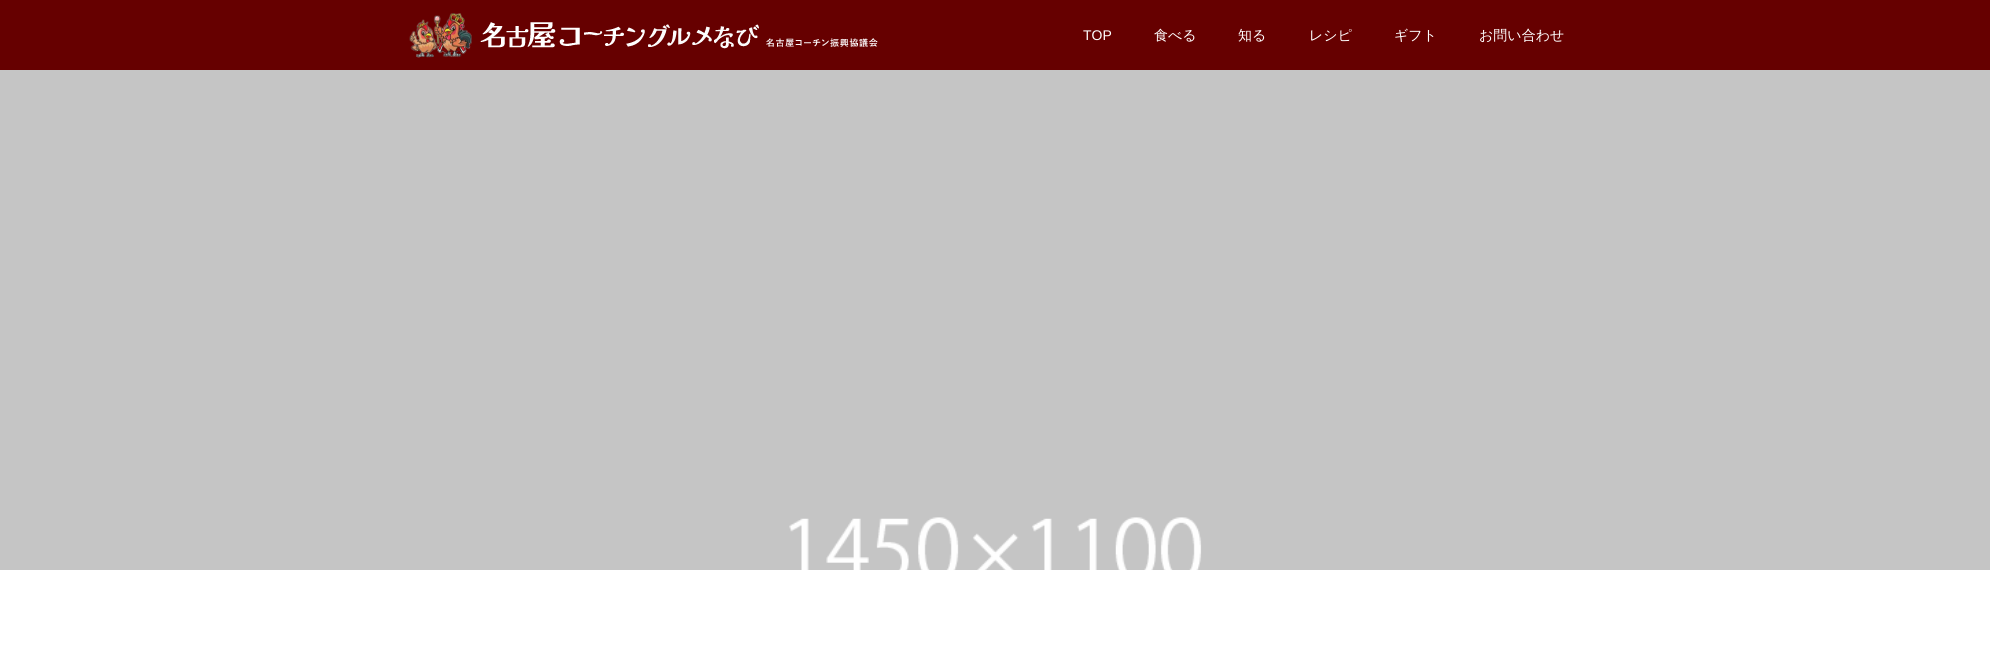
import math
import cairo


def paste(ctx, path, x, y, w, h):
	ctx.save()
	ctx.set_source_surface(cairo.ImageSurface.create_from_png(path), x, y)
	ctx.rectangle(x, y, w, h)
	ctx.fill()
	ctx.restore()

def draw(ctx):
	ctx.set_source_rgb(1, 1, 1)
	ctx.paint()
	ctx.set_source_rgb(0.4, 0, 0)
	ctx.rectangle(0, 0, 1990, 70)
	ctx.fill()
	paste(ctx, 'media/1.png', 409, 13, 469, 45)
	ctx.select_font_face('Liberation Sans')
	ctx.set_font_size(14)
	ctx.set_source_rgb(1, 1, 1)
	ctx.move_to(1083, 40)
	ctx.show_text('TOP')
	ctx.select_font_face('WenQuanYi Zen Hei Medium')
	for x, y, s in [
		(1154, 40, '食べる'),
		(1238, 40, '知る'),
		(1309, 40, 'レシピ'),
		(1394, 40, 'ギフト'),
		(1479, 40, 'お問い合わせ'),
	]:
		ctx.move_to(x, y)
		ctx.show_text(s)
	paste(ctx, 'media/2.png', 0, 70, 1990, 500)


surface = cairo.ImageSurface(cairo.FORMAT_RGB24, 1990, 652)
ctx = cairo.Context(surface)
options = cairo.FontOptions()
options.set_hint_metrics(cairo.HINT_METRICS_OFF)
options.set_hint_style(cairo.HINT_STYLE_NONE)
ctx.set_font_options(options)
ctx.set_miter_limit(4)
draw(ctx)
surface.write_to_png('image.png')
